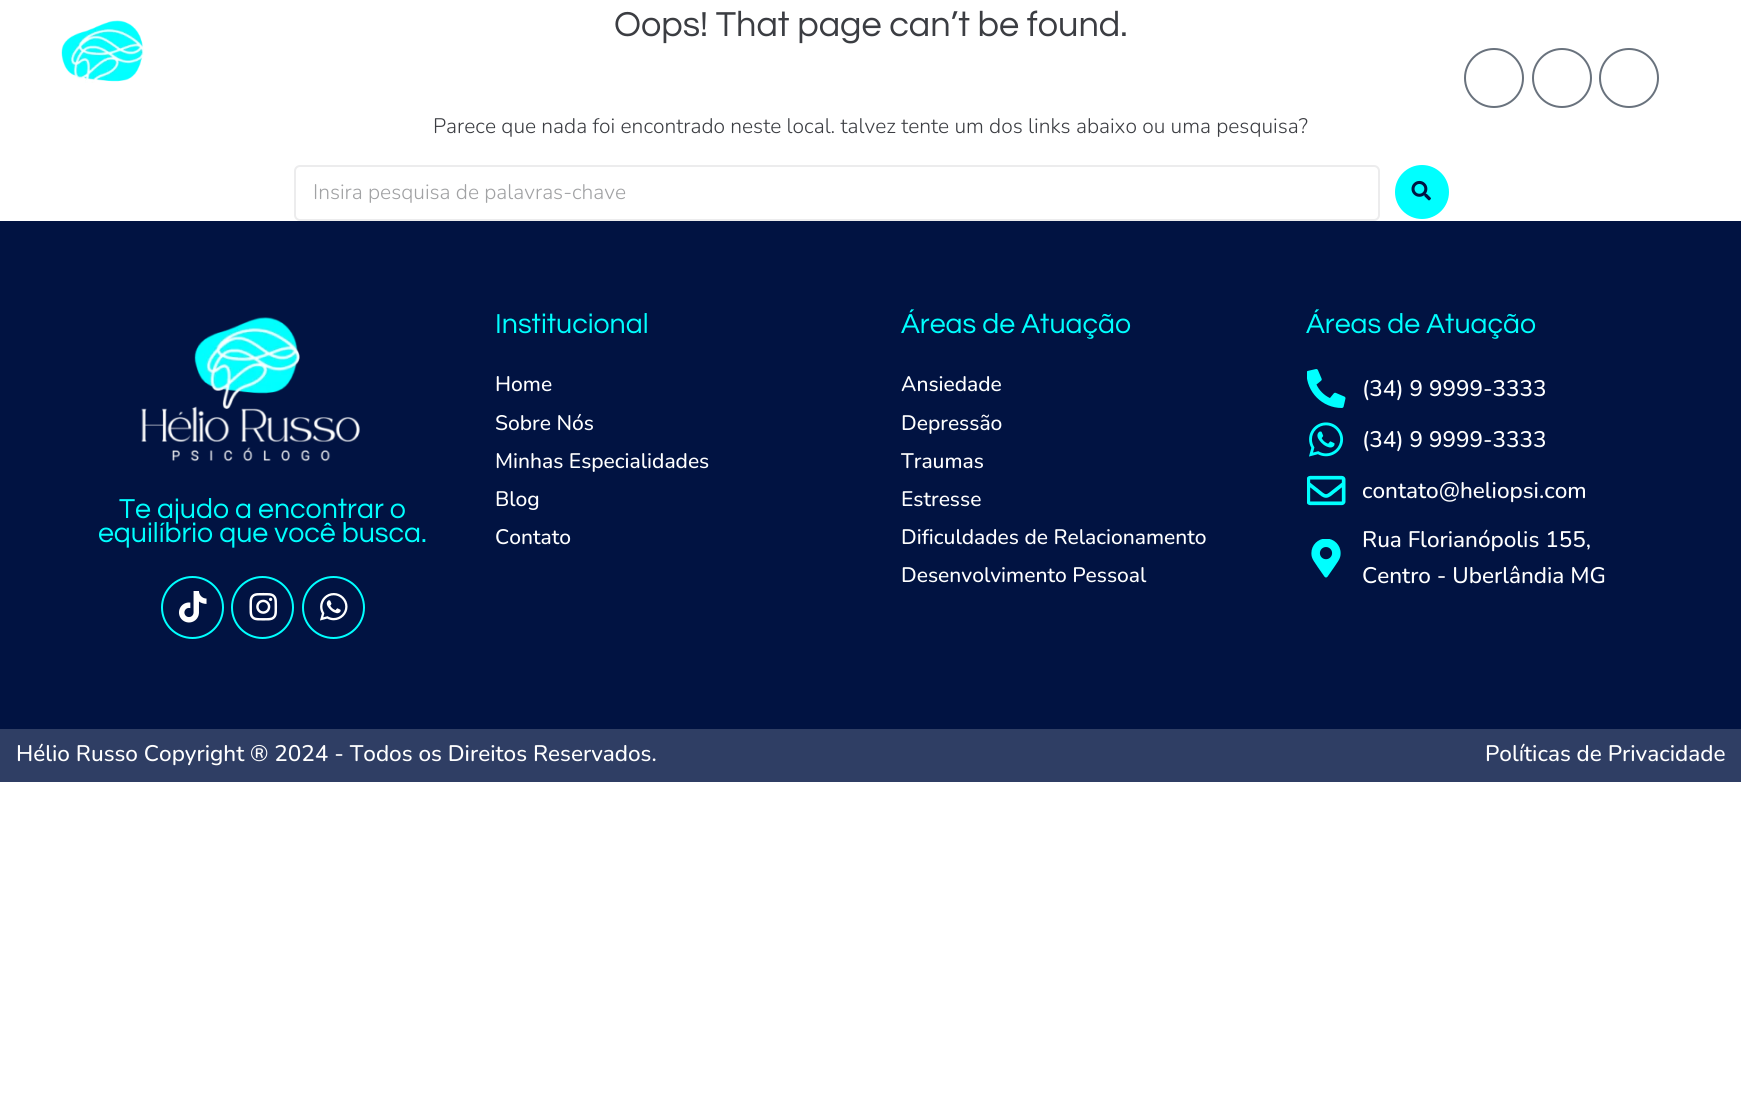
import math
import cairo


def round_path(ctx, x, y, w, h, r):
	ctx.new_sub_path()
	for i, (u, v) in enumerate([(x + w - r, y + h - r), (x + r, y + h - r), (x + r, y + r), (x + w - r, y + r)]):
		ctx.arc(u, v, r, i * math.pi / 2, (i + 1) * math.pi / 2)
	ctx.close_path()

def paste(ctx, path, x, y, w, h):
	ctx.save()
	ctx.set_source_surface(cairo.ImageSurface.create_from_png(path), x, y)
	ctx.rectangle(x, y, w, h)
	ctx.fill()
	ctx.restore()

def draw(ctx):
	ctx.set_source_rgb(1, 1, 1)
	ctx.paint()
	ctx.select_font_face('Questrial')
	ctx.set_font_size(36)
	ctx.set_source_rgb(0.231, 0.239, 0.259)
	ctx.move_to(614, 36)
	ctx.show_text('Oops! That page can’t be found.')
	ctx.select_font_face('Nunito Light')
	ctx.set_font_size(21)
	ctx.move_to(433, 133)
	ctx.show_text('Parece que nada foi encontrado neste local. talvez tente um dos links abaixo ou uma pesquisa?')
	round_path(ctx, 295, 166, 1084, 54, 5)
	ctx.set_source_rgb(0.922, 0.925, 0.929)
	ctx.stroke()
	ctx.set_source_rgb(0.631, 0.635, 0.643)
	ctx.move_to(313, 199)
	ctx.show_text('Insira pesquisa de palavras-chave')
	ctx.set_source_rgb(0, 1, 1)
	ctx.new_path()
	ctx.arc(1422, 192, 27, 0, 2 * math.pi)
	ctx.fill()
	paste(ctx, 'media/1.png', 1411, 180, 20, 21)
	paste(ctx, 'media/2.png', 61, 20, 83, 63)
	ctx.arc(1494, 78, 29, 0, 2 * math.pi)
	ctx.set_source_rgb(0.412, 0.447, 0.49)
	ctx.stroke()
	ctx.arc(1562, 78, 29, 0, 2 * math.pi)
	ctx.stroke()
	ctx.arc(1629, 78, 29, 0, 2 * math.pi)
	ctx.stroke()
	ctx.set_source_rgb(0.004, 0.075, 0.259)
	ctx.rectangle(0, 221, 1741, 508)
	ctx.fill()
	paste(ctx, 'media/3.png', 141, 317, 219, 145)
	ctx.select_font_face('Questrial')
	ctx.set_font_size(28.5)
	ctx.set_source_rgb(0, 1, 1)
	ctx.move_to(119, 518)
	ctx.show_text('Te ajudo a encontrar o')
	ctx.move_to(98, 542)
	ctx.show_text('equilíbrio que você busca.')
	ctx.new_path()
	ctx.arc(192.5, 607.5, 30.5, 0, 2 * math.pi)
	ctx.stroke()
	paste(ctx, 'media/4.png', 179, 591, 28, 32)
	ctx.arc(262.5, 607.5, 30.5, 0, 2 * math.pi)
	ctx.stroke()
	paste(ctx, 'media/5.png', 249, 592, 29, 29)
	ctx.arc(333.5, 607.5, 30.5, 0, 2 * math.pi)
	ctx.stroke()
	paste(ctx, 'media/6.png', 320, 593, 28, 28)
	ctx.move_to(495, 333)
	ctx.show_text('Institucional')
	ctx.select_font_face('Nunito Medium')
	ctx.set_font_size(21)
	ctx.set_source_rgb(1, 1, 1)
	for x, y, s in [
		(495, 391, 'Home'),
		(495, 430, 'Sobre Nós'),
		(495, 468, 'Minhas Especialidades'),
		(495, 506, 'Blog'),
		(495, 544, 'Contato'),
	]:
		ctx.move_to(x, y)
		ctx.show_text(s)
	ctx.select_font_face('Questrial')
	ctx.set_font_size(28.5)
	ctx.set_source_rgb(0, 1, 1)
	ctx.move_to(901, 333)
	ctx.show_text('Áreas de Atuação')
	ctx.select_font_face('Nunito Medium')
	ctx.set_font_size(21)
	ctx.set_source_rgb(1, 1, 1)
	for x, y, s in [
		(901, 391, 'Ansiedade'),
		(901, 430, 'Depressão'),
		(901, 468, 'Traumas'),
		(901, 506, 'Estresse'),
		(901, 544, 'Dificuldades de Relacionamento'),
		(901, 582, 'Desenvolvimento Pessoal'),
	]:
		ctx.move_to(x, y)
		ctx.show_text(s)
	ctx.select_font_face('Questrial')
	ctx.set_font_size(28.5)
	ctx.set_source_rgb(0, 1, 1)
	ctx.move_to(1306, 333)
	ctx.show_text('Áreas de Atuação')
	paste(ctx, 'media/7.png', 1307, 369, 39, 39)
	ctx.select_font_face('Nunito Medium')
	ctx.set_font_size(22.5)
	ctx.set_source_rgb(1, 1, 1)
	ctx.move_to(1362, 396)
	ctx.show_text('(34) 9 9999-3333')
	paste(ctx, 'media/8.png', 1309, 422, 35, 35)
	ctx.move_to(1362, 447)
	ctx.show_text('(34) 9 9999-3333')
	paste(ctx, 'media/9.png', 1307, 475, 39, 31)
	ctx.move_to(1362, 498)
	ctx.show_text('contato@heliopsi.com')
	paste(ctx, 'media/10.png', 1311, 539, 30, 39)
	ctx.move_to(1362, 547)
	ctx.show_text('Rua Florianópolis 155,')
	ctx.move_to(1362, 583)
	ctx.show_text('Centro - Uberlândia MG')
	ctx.set_source_rgb(0.184, 0.243, 0.392)
	ctx.rectangle(0, 729, 1741, 53)
	ctx.fill()
	ctx.set_source_rgb(1, 1, 1)
	ctx.move_to(16, 761)
	ctx.show_text('Hélio Russo Copyright ® 2024 - Todos os Direitos Reservados.')
	ctx.move_to(1485, 761)
	ctx.show_text('Políticas de Privacidade')


surface = cairo.ImageSurface(cairo.FORMAT_RGB24, 1741, 1109)
ctx = cairo.Context(surface)
options = cairo.FontOptions()
options.set_hint_metrics(cairo.HINT_METRICS_OFF)
options.set_hint_style(cairo.HINT_STYLE_NONE)
ctx.set_font_options(options)
ctx.set_miter_limit(4)
draw(ctx)
surface.write_to_png('image.png')
